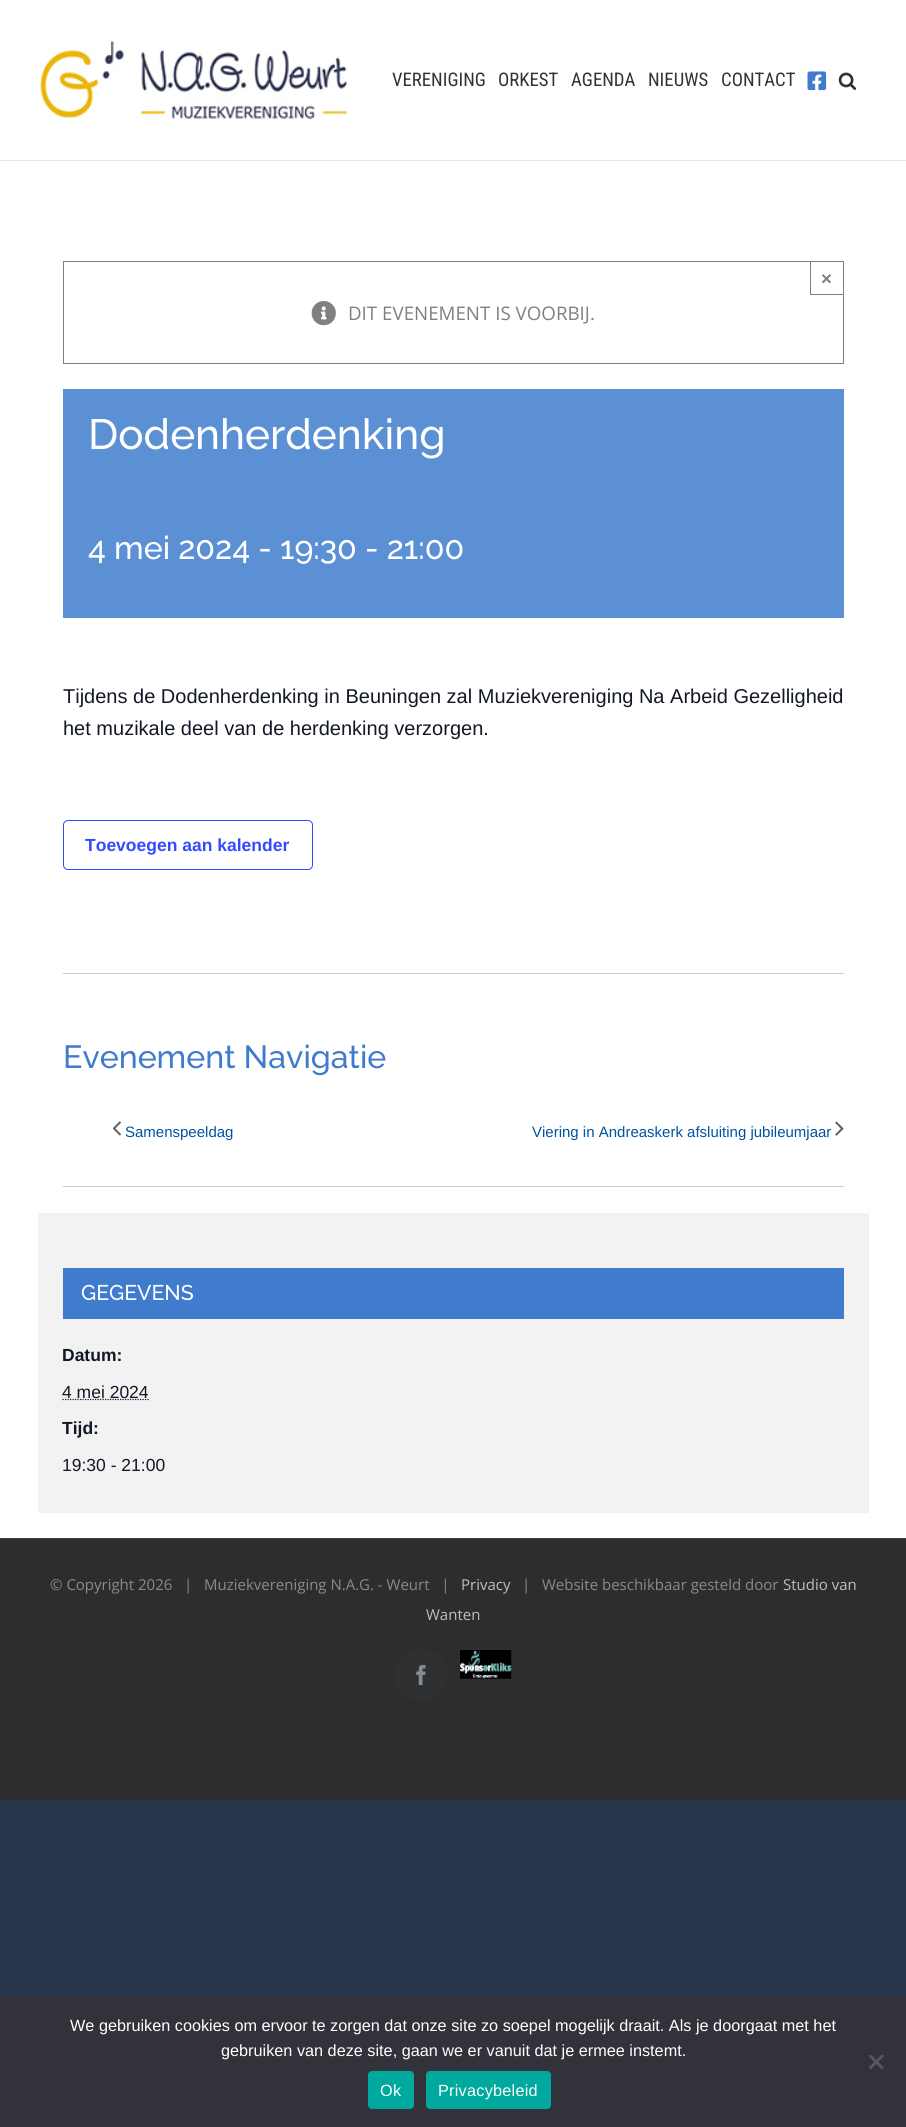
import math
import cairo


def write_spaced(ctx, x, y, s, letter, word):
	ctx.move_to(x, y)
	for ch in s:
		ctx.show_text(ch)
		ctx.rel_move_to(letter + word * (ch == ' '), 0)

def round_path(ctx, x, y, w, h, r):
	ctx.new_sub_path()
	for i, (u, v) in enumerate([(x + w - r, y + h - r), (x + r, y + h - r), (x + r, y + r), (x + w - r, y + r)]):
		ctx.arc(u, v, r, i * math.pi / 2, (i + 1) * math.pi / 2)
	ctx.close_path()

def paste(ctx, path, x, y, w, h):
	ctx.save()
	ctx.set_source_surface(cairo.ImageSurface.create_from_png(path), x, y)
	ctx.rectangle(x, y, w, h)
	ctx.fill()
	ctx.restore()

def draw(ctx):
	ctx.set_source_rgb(0.145, 0.208, 0.29)
	ctx.paint()
	ctx.set_source_rgb(1, 1, 1)
	ctx.rectangle(0, 0, 906, 160)
	ctx.fill()
	ctx.set_source_rgb(0.898, 0.898, 0.898)
	ctx.rectangle(0, 160, 906, 1)
	ctx.fill()
	paste(ctx, 'media/1.png', 39, 41, 309, 78)
	ctx.select_font_face('Roboto Condensed')
	ctx.set_font_size(18.75)
	ctx.set_source_rgb(0.2, 0.2, 0.2)
	for x, y, s in [
		(392, 86, 'VERENIGING'),
		(498, 86, 'ORKEST'),
		(571, 86, 'AGENDA'),
		(648, 86, 'NIEUWS'),
		(721, 86, 'CONTACT'),
	]:
		ctx.move_to(x, y)
		ctx.show_text(s)
	paste(ctx, 'media/2.png', 807, 71, 20, 20)
	paste(ctx, 'media/3.png', 838, 72, 19, 18)
	ctx.set_source_rgb(1, 1, 1)
	ctx.rectangle(0, 161, 906, 1377)
	ctx.fill()
	ctx.rectangle(63.5, 261.5, 780, 102)
	ctx.set_source_rgb(0.502, 0.502, 0.502)
	ctx.set_line_width(1)
	ctx.stroke()
	ctx.rectangle(810.5, 261.5, 33, 33)
	ctx.stroke()
	ctx.select_font_face('Liberation Sans', cairo.FONT_SLANT_NORMAL, cairo.FONT_WEIGHT_BOLD)
	ctx.move_to(821, 285)
	ctx.show_text('×')
	paste(ctx, 'media/4.png', 311, 301, 25, 25)
	ctx.select_font_face('Open Sans')
	ctx.move_to(348, 320)
	ctx.show_text('DIT EVENEMENT IS VOORBIJ.')
	ctx.set_source_rgb(0.361, 0.565, 0.835)
	ctx.rectangle(63, 389, 781, 229)
	ctx.fill()
	ctx.select_font_face('Raleway Medium')
	ctx.set_font_size(42.25)
	ctx.set_source_rgb(1, 1, 1)
	ctx.move_to(88, 449)
	ctx.show_text('Dodenherdenking')
	ctx.set_font_size(32.1)
	ctx.move_to(88, 559)
	ctx.show_text('4 mei 2024 - 19:30 - 21:00')
	ctx.select_font_face('Liberation Sans')
	ctx.set_font_size(20)
	ctx.set_source_rgb(0.078, 0.094, 0.153)
	ctx.move_to(63, 703)
	ctx.show_text('Tijdens de Dodenherdenking in Beuningen zal Muziekvereniging Na Arbeid Gezelligheid')
	ctx.move_to(63, 735)
	ctx.show_text('het muzikale deel van de herdenking verzorgen.')
	round_path(ctx, 63.5, 820.5, 249, 49, 4.5)
	ctx.set_source_rgb(0.2, 0.29, 1)
	ctx.stroke()
	ctx.select_font_face('Liberation Sans', cairo.FONT_SLANT_NORMAL, cairo.FONT_WEIGHT_BOLD)
	ctx.set_font_size(17.5)
	ctx.move_to(85, 851)
	ctx.show_text('Toevoegen aan kalender')
	ctx.set_source_rgb(0.8, 0.8, 0.8)
	ctx.rectangle(63, 973, 781, 1)
	ctx.fill()
	ctx.rectangle(63, 1186, 781, 1)
	ctx.fill()
	ctx.select_font_face('Raleway Medium')
	ctx.set_font_size(32.1)
	ctx.set_source_rgb(0.247, 0.486, 0.804)
	ctx.move_to(63, 1068)
	ctx.show_text('Evenement Navigatie')
	paste(ctx, 'media/5.png', 113, 1121, 8, 15)
	ctx.select_font_face('Liberation Sans')
	ctx.set_font_size(15)
	ctx.set_source_rgb(0, 0.325, 0.627)
	ctx.move_to(125, 1137)
	ctx.show_text('Samenspeeldag')
	ctx.move_to(532, 1137)
	ctx.show_text('Viering in Andreaskerk afsluiting jubileumjaar')
	paste(ctx, 'media/6.png', 835, 1121, 9, 15)
	ctx.set_source_rgb(0.949, 0.949, 0.949)
	ctx.rectangle(38, 1213, 831, 300)
	ctx.fill()
	ctx.set_source_rgb(0.247, 0.486, 0.804)
	ctx.rectangle(63, 1268, 781, 51)
	ctx.fill()
	ctx.select_font_face('Raleway Medium')
	ctx.set_font_size(21.25)
	ctx.set_source_rgb(1, 1, 1)
	ctx.move_to(81, 1300)
	ctx.show_text('GEGEVENS')
	ctx.select_font_face('Liberation Sans', cairo.FONT_SLANT_NORMAL, cairo.FONT_WEIGHT_BOLD)
	ctx.set_font_size(17.5)
	ctx.set_source_rgb(0.078, 0.094, 0.153)
	ctx.move_to(62, 1361)
	ctx.show_text('Datum:')
	ctx.new_path()
	ctx.move_to(62.5, 1399.5)
	ctx.line_to(149, 1399.5)
	ctx.set_line_width(1.2)
	ctx.set_dash([1.25, 1.25])
	ctx.stroke()
	ctx.select_font_face('Liberation Sans')
	ctx.move_to(62, 1398)
	ctx.show_text('4 mei 2024')
	ctx.select_font_face('Liberation Sans', cairo.FONT_SLANT_NORMAL, cairo.FONT_WEIGHT_BOLD)
	ctx.move_to(62, 1434)
	ctx.show_text('Tijd:')
	ctx.select_font_face('Liberation Sans')
	ctx.move_to(62, 1471)
	ctx.show_text('19:30 - 21:00')
	ctx.set_source_rgb(0.173, 0.176, 0.184)
	ctx.rectangle(0, 1539, 906, 261)
	ctx.fill()
	ctx.set_source_rgb(0.251, 0.251, 0.259)
	ctx.rectangle(0, 1538, 906, 1)
	ctx.fill()
	ctx.select_font_face('Open Sans')
	ctx.set_font_size(15)
	ctx.set_source_rgb(0.549, 0.537, 0.537)
	ctx.move_to(50, 1590)
	ctx.show_text('© Copyright 2026   |   Muziekvereniging N.A.G. - Weurt   |')
	ctx.set_source_rgb(0.749, 0.749, 0.749)
	ctx.move_to(461, 1590)
	ctx.show_text('Privacy')
	ctx.set_source_rgb(0.549, 0.537, 0.537)
	ctx.move_to(522, 1590)
	ctx.show_text('|   Website beschikbaar gesteld door')
	ctx.set_source_rgb(0.749, 0.749, 0.749)
	ctx.move_to(783, 1590)
	ctx.show_text('Studio van')
	ctx.move_to(426, 1620)
	ctx.show_text('Wanten')
	ctx.set_source_rgb(0.184, 0.188, 0.196)
	round_path(ctx, 395, 1649, 53, 52, 26)
	ctx.fill()
	paste(ctx, 'media/7.png', 416, 1665, 10, 20)
	paste(ctx, 'media/8.png', 460, 1650, 52, 29)
	ctx.set_source_rgb(0.196, 0.196, 0.227)
	ctx.rectangle(0, 1995, 906, 132)
	ctx.fill()
	ctx.select_font_face('Liberation Sans')
	ctx.set_font_size(16.25)
	ctx.set_source_rgb(1, 1, 1)
	ctx.move_to(70, 2031)
	ctx.show_text('We gebruiken cookies om ervoor te zorgen dat onze site zo soepel mogelijk draait. Als je doorgaat met het')
	ctx.move_to(221, 2056)
	ctx.show_text('gebruiken van deze site, gaan we er vanuit dat je ermee instemt.')
	ctx.set_source_rgb(0.349, 0.349, 0.365)
	ctx.new_path()
	ctx.move_to(882, 2054.5)
	ctx.line_to(884, 2056)
	ctx.line_to(870.5, 2069.5)
	ctx.line_to(868.5, 2067.5)
	ctx.close_path()
	ctx.fill()
	ctx.new_path()
	ctx.move_to(868.5, 2056)
	ctx.line_to(870.5, 2054.5)
	ctx.line_to(884, 2067.5)
	ctx.line_to(882, 2069.5)
	ctx.close_path()
	ctx.fill()
	ctx.set_source_rgb(0, 0.663, 0.616)
	round_path(ctx, 368, 2071, 46, 38, 4)
	ctx.fill()
	ctx.set_source_rgb(1, 1, 1)
	write_spaced(ctx, 380, 2096, 'Ok', 0.25, 0)
	ctx.set_source_rgb(0, 0.663, 0.616)
	round_path(ctx, 426, 2071, 125, 38, 4)
	ctx.fill()
	ctx.set_source_rgb(1, 1, 1)
	write_spaced(ctx, 438, 2096, 'Privacybeleid', 0.25, 0)


surface = cairo.ImageSurface(cairo.FORMAT_RGB24, 906, 2127)
ctx = cairo.Context(surface)
options = cairo.FontOptions()
options.set_hint_metrics(cairo.HINT_METRICS_OFF)
options.set_hint_style(cairo.HINT_STYLE_NONE)
ctx.set_font_options(options)
ctx.set_miter_limit(4)
draw(ctx)
surface.write_to_png('image.png')
